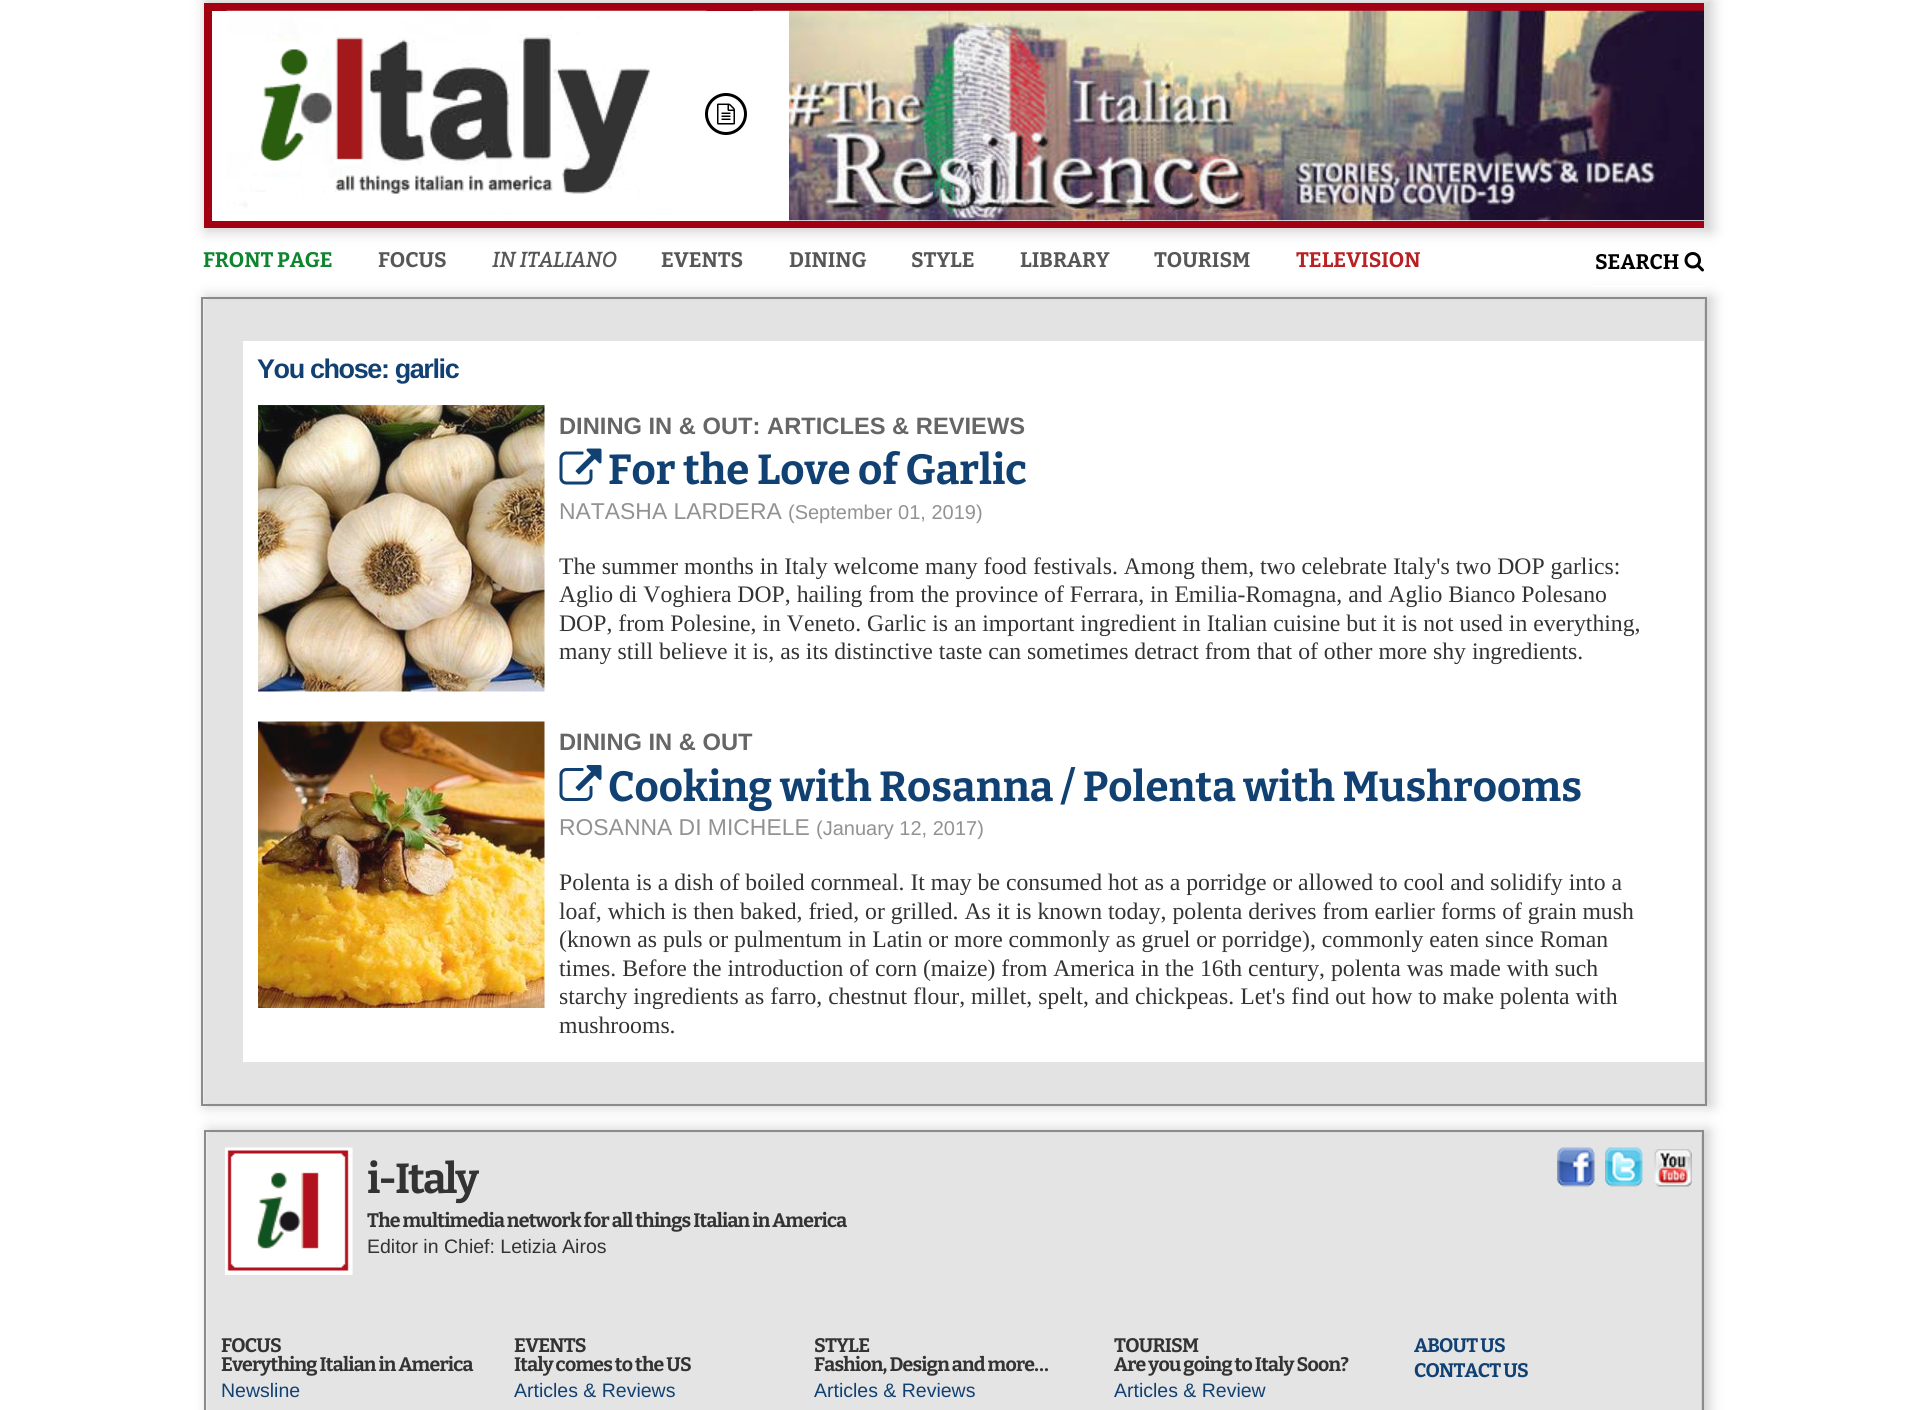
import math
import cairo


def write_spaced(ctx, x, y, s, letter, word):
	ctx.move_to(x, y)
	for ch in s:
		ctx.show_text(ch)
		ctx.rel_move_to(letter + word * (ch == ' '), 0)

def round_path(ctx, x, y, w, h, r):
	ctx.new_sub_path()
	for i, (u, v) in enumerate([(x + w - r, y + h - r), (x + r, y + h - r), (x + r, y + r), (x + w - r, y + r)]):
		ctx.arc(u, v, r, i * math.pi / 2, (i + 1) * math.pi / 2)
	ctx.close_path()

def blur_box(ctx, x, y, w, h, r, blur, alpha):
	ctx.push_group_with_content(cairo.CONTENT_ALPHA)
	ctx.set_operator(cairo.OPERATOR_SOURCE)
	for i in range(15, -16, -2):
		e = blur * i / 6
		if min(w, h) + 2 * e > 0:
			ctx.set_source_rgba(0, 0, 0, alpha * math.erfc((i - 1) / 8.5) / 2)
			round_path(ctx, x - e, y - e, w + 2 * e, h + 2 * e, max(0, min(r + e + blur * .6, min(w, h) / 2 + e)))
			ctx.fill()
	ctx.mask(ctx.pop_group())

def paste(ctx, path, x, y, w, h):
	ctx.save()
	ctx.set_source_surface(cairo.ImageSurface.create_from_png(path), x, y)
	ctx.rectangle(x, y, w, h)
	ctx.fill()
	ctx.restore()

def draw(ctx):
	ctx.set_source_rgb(1, 1, 1)
	ctx.paint()
	ctx.save()
	ctx.set_fill_rule(cairo.FILL_RULE_EVEN_ODD)
	ctx.new_path()
	ctx.move_to(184, 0)
	ctx.line_to(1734, 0)
	ctx.line_to(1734, 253)
	ctx.line_to(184, 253)
	ctx.close_path()
	ctx.move_to(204, 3)
	ctx.line_to(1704, 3)
	ctx.line_to(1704, 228)
	ctx.line_to(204, 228)
	ctx.close_path()
	ctx.clip()
	ctx.set_source_rgb(0.8, 0.8, 0.8)
	blur_box(ctx, 206, 0, 1506, 231, 0, 7, 1)
	ctx.restore()
	ctx.set_source_rgb(0.639, 0, 0.075)
	ctx.rectangle(204, 3, 1500, 8)
	ctx.rectangle(204, 221, 1500, 7)
	ctx.rectangle(204, 3, 8, 225)
	ctx.fill()
	paste(ctx, 'media/2.png', 753, 10, 951, 211)
	ctx.set_source_rgb(1, 1, 1)
	ctx.rectangle(753, 11, 36, 210)
	ctx.fill()
	paste(ctx, 'media/1.png', 226, 10, 481, 210)
	ctx.arc(726, 114, 19.5, 0, 2 * math.pi)
	ctx.set_source_rgb(0, 0, 0)
	ctx.set_line_width(3)
	ctx.stroke()
	paste(ctx, 'media/3.png', 717, 103, 18, 22)
	ctx.select_font_face('Bitter', cairo.FONT_SLANT_NORMAL, cairo.FONT_WEIGHT_BOLD)
	ctx.set_font_size(21)
	ctx.set_source_rgb(0.059, 0.522, 0.184)
	ctx.move_to(203, 267)
	ctx.show_text('FRONT PAGE')
	ctx.set_source_rgb(0.341, 0.341, 0.341)
	ctx.move_to(378, 267)
	ctx.show_text('FOCUS')
	ctx.select_font_face('Bitter', cairo.FONT_SLANT_ITALIC, cairo.FONT_WEIGHT_BOLD)
	ctx.move_to(492, 267)
	ctx.show_text('IN ITALIANO')
	ctx.select_font_face('Bitter', cairo.FONT_SLANT_NORMAL, cairo.FONT_WEIGHT_BOLD)
	for x, y, s in [
		(661, 267, 'EVENTS'),
		(789, 267, 'DINING'),
		(911, 267, 'STYLE'),
		(1020, 267, 'LIBRARY'),
		(1154, 267, 'TOURISM'),
	]:
		ctx.move_to(x, y)
		ctx.show_text(s)
	ctx.set_source_rgb(0.722, 0.133, 0.141)
	ctx.move_to(1296, 267)
	ctx.show_text('TELEVISION')
	ctx.set_source_rgb(0, 0, 0)
	ctx.move_to(1595, 269)
	ctx.show_text('SEARCH')
	paste(ctx, 'media/4.png', 1684, 252, 20, 20)
	ctx.set_source_rgb(0.8, 0.8, 0.8)
	blur_box(ctx, 206, 297, 1506, 809, 0, 7, 1)
	ctx.set_source_rgb(1, 1, 1)
	ctx.rectangle(1592, 286, 112, 1)
	ctx.rectangle(243, 341, 1461, 721)
	ctx.fill()
	ctx.set_source_rgb(0.89, 0.89, 0.89)
	ctx.rectangle(243, 300, 1461, 41)
	ctx.rectangle(243, 1062, 1461, 41)
	ctx.rectangle(204, 300, 39, 803)
	ctx.fill()
	ctx.rectangle(202, 298, 1504, 807)
	ctx.set_source_rgb(0.545, 0.545, 0.545)
	ctx.set_line_width(2)
	ctx.stroke()
	ctx.select_font_face('Liberation Sans', cairo.FONT_SLANT_NORMAL, cairo.FONT_WEIGHT_BOLD)
	ctx.set_font_size(27)
	ctx.set_source_rgb(0.067, 0.255, 0.447)
	write_spaced(ctx, 257, 378, 'You chose: garlic', -1.4, 0)
	paste(ctx, 'media/5.png', 258, 405, 287, 287)
	ctx.set_font_size(23.7)
	ctx.set_source_rgb(0.4, 0.4, 0.4)
	ctx.move_to(559, 434)
	ctx.show_text('DINING IN & OUT: ARTICLES & REVIEWS')
	paste(ctx, 'media/6.png', 559, 448, 43, 37)
	ctx.select_font_face('Bitter', cairo.FONT_SLANT_NORMAL, cairo.FONT_WEIGHT_BOLD)
	ctx.set_font_size(42)
	ctx.set_source_rgb(0.067, 0.255, 0.447)
	ctx.move_to(608, 484)
	ctx.show_text('For the Love of Garlic')
	ctx.select_font_face('Liberation Sans')
	ctx.set_font_size(22.9)
	ctx.set_source_rgb(0.573, 0.573, 0.573)
	ctx.move_to(559, 519)
	ctx.show_text('NATASHA LARDERA')
	ctx.set_font_size(20)
	ctx.move_to(788, 519)
	ctx.show_text('(September 01, 2019)')
	ctx.select_font_face('Liberation Serif')
	ctx.set_font_size(23.7)
	ctx.set_source_rgb(0.2, 0.2, 0.2)
	for x, y, s in [
		(559, 574, 'The summer months in Italy welcome many food festivals. Among them, two celebrate Italy\'s two DOP garlics:'),
		(559, 602, 'Aglio di Voghiera DOP, hailing from the province of Ferrara, in Emilia-Romagna, and Aglio Bianco Polesano'),
		(559, 631, 'DOP, from Polesine, in Veneto. Garlic is an important ingredient in Italian cuisine but it is not used in everything,'),
		(559, 659, 'many still believe it is, as its distinctive taste can sometimes detract from that of other more shy ingredients.'),
	]:
		ctx.move_to(x, y)
		ctx.show_text(s)
	paste(ctx, 'media/7.png', 258, 721, 287, 287)
	ctx.select_font_face('Liberation Sans', cairo.FONT_SLANT_NORMAL, cairo.FONT_WEIGHT_BOLD)
	ctx.set_source_rgb(0.4, 0.4, 0.4)
	ctx.move_to(559, 750)
	ctx.show_text('DINING IN & OUT')
	paste(ctx, 'media/8.png', 559, 765, 43, 36)
	ctx.select_font_face('Bitter', cairo.FONT_SLANT_NORMAL, cairo.FONT_WEIGHT_BOLD)
	ctx.set_font_size(42)
	ctx.set_source_rgb(0.067, 0.255, 0.447)
	ctx.move_to(608, 801)
	ctx.show_text('Cooking with Rosanna / Polenta with Mushrooms')
	ctx.select_font_face('Liberation Sans')
	ctx.set_font_size(22.9)
	ctx.set_source_rgb(0.573, 0.573, 0.573)
	ctx.move_to(559, 835)
	ctx.show_text('ROSANNA DI MICHELE')
	ctx.set_font_size(20)
	ctx.move_to(816, 835)
	ctx.show_text('(January 12, 2017)')
	ctx.select_font_face('Liberation Serif')
	ctx.set_font_size(23.7)
	ctx.set_source_rgb(0.2, 0.2, 0.2)
	for x, y, s in [
		(559, 890, 'Polenta is a dish of boiled cornmeal. It may be consumed hot as a porridge or allowed to cool and solidify into a'),
		(559, 919, 'loaf, which is then baked, fried, or grilled. As it is known today, polenta derives from earlier forms of grain mush'),
		(559, 947, '(known as puls or pulmentum in Latin or more commonly as gruel or porridge), commonly eaten since Roman'),
		(559, 976, 'times. Before the introduction of corn (maize) from America in the 16th century, polenta was made with such'),
		(559, 1004, 'starchy ingredients as farro, chestnut flour, millet, spelt, and chickpeas. Let\'s find out how to make polenta with'),
		(559, 1033, 'mushrooms.'),
	]:
		ctx.move_to(x, y)
		ctx.show_text(s)
	ctx.set_source_rgb(0.8, 0.8, 0.8)
	blur_box(ctx, 209, 1130, 1500, 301, 0, 7, 1)
	ctx.set_source_rgb(0.894, 0.894, 0.894)
	ctx.rectangle(207, 1133, 1494, 277)
	ctx.fill()
	ctx.rectangle(205, 1131, 1498, 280)
	ctx.set_source_rgb(0.545, 0.545, 0.545)
	ctx.stroke()
	paste(ctx, 'media/9.png', 225, 1147, 128, 128)
	ctx.select_font_face('Bitter', cairo.FONT_SLANT_NORMAL, cairo.FONT_WEIGHT_BOLD)
	ctx.set_font_size(42)
	ctx.set_source_rgb(0.2, 0.2, 0.2)
	write_spaced(ctx, 367, 1193, 'i-Italy', -2, 0)
	ctx.set_font_size(19.5)
	write_spaced(ctx, 367, 1227, 'The multimedia network for all things Italian in America', -0.75, 0)
	ctx.select_font_face('Liberation Sans')
	ctx.move_to(367, 1253)
	ctx.show_text('Editor in Chief: Letizia Airos')
	paste(ctx, 'media/10.png', 1557, 1147, 38, 40)
	paste(ctx, 'media/11.png', 1605, 1147, 38, 40)
	paste(ctx, 'media/12.png', 1654, 1149, 38, 38)
	ctx.select_font_face('Bitter', cairo.FONT_SLANT_NORMAL, cairo.FONT_WEIGHT_BOLD)
	write_spaced(ctx, 221, 1352, 'FOCUS', -0.75, 0)
	write_spaced(ctx, 221, 1371, 'Everything Italian in America', -0.75, 0)
	ctx.select_font_face('Liberation Sans')
	ctx.set_source_rgb(0.067, 0.255, 0.447)
	ctx.move_to(221, 1397)
	ctx.show_text('Newsline')
	ctx.select_font_face('Bitter', cairo.FONT_SLANT_NORMAL, cairo.FONT_WEIGHT_BOLD)
	ctx.set_source_rgb(0.2, 0.2, 0.2)
	write_spaced(ctx, 514, 1352, 'EVENTS', -0.75, 0)
	write_spaced(ctx, 514, 1371, 'Italy comes to the US', -0.75, 0)
	ctx.select_font_face('Liberation Sans')
	ctx.set_source_rgb(0.067, 0.255, 0.447)
	ctx.move_to(514, 1397)
	ctx.show_text('Articles & Reviews')
	ctx.select_font_face('Bitter', cairo.FONT_SLANT_NORMAL, cairo.FONT_WEIGHT_BOLD)
	ctx.set_source_rgb(0.2, 0.2, 0.2)
	write_spaced(ctx, 814, 1352, 'STYLE', -0.75, 0)
	write_spaced(ctx, 814, 1371, 'Fashion, Design and more…', -0.75, 0)
	ctx.select_font_face('Liberation Sans')
	ctx.set_source_rgb(0.067, 0.255, 0.447)
	ctx.move_to(814, 1397)
	ctx.show_text('Articles & Reviews')
	ctx.select_font_face('Bitter', cairo.FONT_SLANT_NORMAL, cairo.FONT_WEIGHT_BOLD)
	ctx.set_source_rgb(0.2, 0.2, 0.2)
	write_spaced(ctx, 1114, 1352, 'TOURISM', -0.75, 0)
	write_spaced(ctx, 1114, 1371, 'Are you going to Italy Soon?', -0.75, 0)
	ctx.select_font_face('Liberation Sans')
	ctx.set_source_rgb(0.067, 0.255, 0.447)
	ctx.move_to(1114, 1397)
	ctx.show_text('Articles & Review')
	ctx.select_font_face('Bitter', cairo.FONT_SLANT_NORMAL, cairo.FONT_WEIGHT_BOLD)
	write_spaced(ctx, 1414, 1352, 'ABOUT US', -0.75, 0)
	write_spaced(ctx, 1414, 1377, 'CONTACT US', -0.75, 0)


surface = cairo.ImageSurface(cairo.FORMAT_RGB24, 1906, 1410)
ctx = cairo.Context(surface)
options = cairo.FontOptions()
options.set_hint_metrics(cairo.HINT_METRICS_OFF)
options.set_hint_style(cairo.HINT_STYLE_NONE)
ctx.set_font_options(options)
ctx.set_miter_limit(4)
draw(ctx)
surface.write_to_png('image.png')
